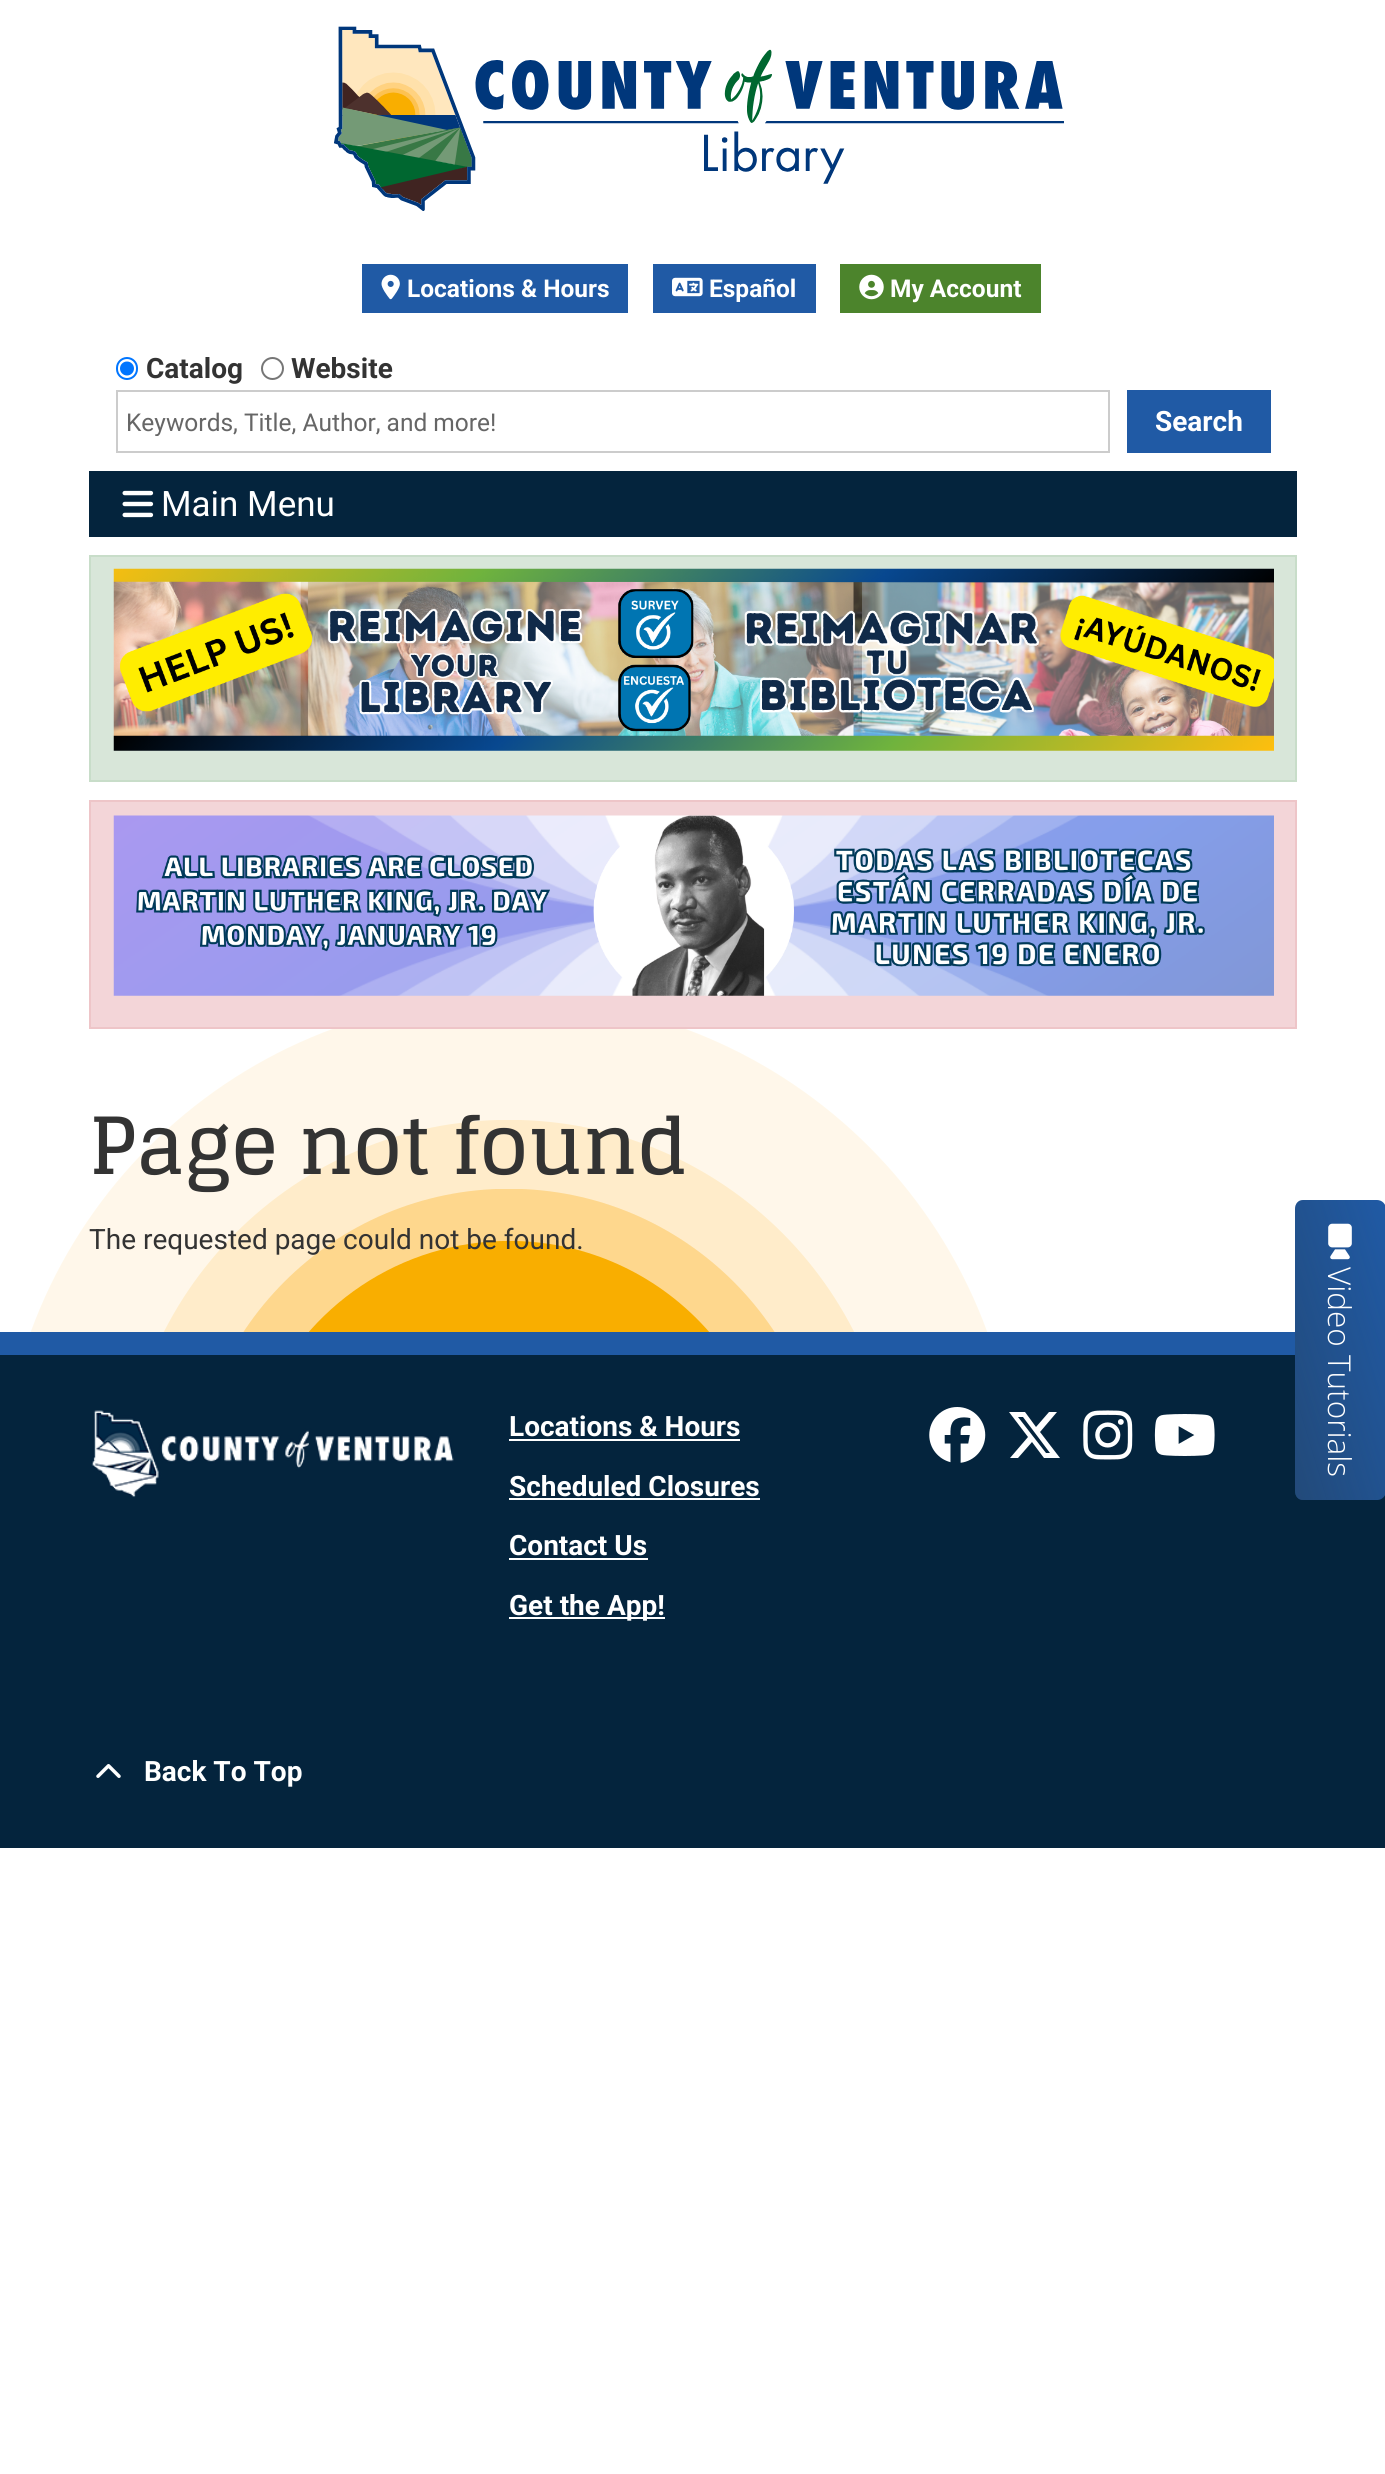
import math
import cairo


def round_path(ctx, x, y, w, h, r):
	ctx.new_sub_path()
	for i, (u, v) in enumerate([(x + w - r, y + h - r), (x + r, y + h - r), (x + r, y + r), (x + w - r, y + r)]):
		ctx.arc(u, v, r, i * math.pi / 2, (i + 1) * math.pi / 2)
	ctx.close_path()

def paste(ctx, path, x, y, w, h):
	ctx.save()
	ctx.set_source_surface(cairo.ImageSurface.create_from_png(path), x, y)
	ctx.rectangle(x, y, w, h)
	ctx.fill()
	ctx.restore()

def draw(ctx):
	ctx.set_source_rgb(1, 1, 1)
	ctx.paint()
	paste(ctx, 'media/1.png', 334, 26, 730, 185)
	ctx.set_source_rgb(0.125, 0.353, 0.647)
	ctx.rectangle(362, 264, 266, 49)
	ctx.fill()
	paste(ctx, 'media/2.png', 381, 274, 19, 26)
	ctx.select_font_face('Roboto', cairo.FONT_SLANT_NORMAL, cairo.FONT_WEIGHT_BOLD)
	ctx.set_font_size(24.5)
	ctx.set_source_rgb(1, 1, 1)
	ctx.move_to(407, 297)
	ctx.show_text('Locations & Hours')
	ctx.set_source_rgb(0.125, 0.353, 0.647)
	ctx.rectangle(653, 264, 163, 49)
	ctx.fill()
	paste(ctx, 'media/3.png', 672, 277, 31, 20)
	ctx.set_source_rgb(1, 1, 1)
	ctx.move_to(709, 297)
	ctx.show_text('Español')
	ctx.set_source_rgb(0.298, 0.518, 0.173)
	ctx.rectangle(840, 264, 201, 49)
	ctx.fill()
	paste(ctx, 'media/4.png', 859, 274, 25, 26)
	ctx.set_source_rgb(1, 1, 1)
	ctx.move_to(890, 297)
	ctx.show_text('My Account')
	round_path(ctx, 117, 358, 20, 21, 10)
	ctx.set_source_rgb(0, 0.459, 1)
	ctx.stroke()
	ctx.arc(127, 368.5, 7, 0, 2 * math.pi)
	ctx.fill()
	ctx.set_font_size(28)
	ctx.set_source_rgb(0.2, 0.2, 0.2)
	ctx.move_to(146, 378)
	ctx.show_text('Catalog')
	ctx.new_path()
	ctx.arc(272.5, 368.5, 10.5, 0, 2 * math.pi)
	ctx.set_source_rgb(0.463, 0.463, 0.463)
	ctx.stroke()
	ctx.set_source_rgb(0.2, 0.2, 0.2)
	ctx.move_to(291, 378)
	ctx.show_text('Website')
	ctx.rectangle(117, 391, 992, 61)
	ctx.set_source_rgb(0.8, 0.8, 0.8)
	ctx.stroke()
	ctx.save()
	ctx.rectangle(126, 408, 973, 28)
	ctx.clip()
	ctx.select_font_face('Roboto')
	ctx.set_font_size(24.5)
	ctx.set_source_rgb(0.4, 0.4, 0.4)
	ctx.move_to(126, 431)
	ctx.show_text('Keywords, Title, Author, and more!')
	ctx.restore()
	ctx.set_source_rgb(0.125, 0.353, 0.647)
	ctx.rectangle(1127, 390, 144, 63)
	ctx.fill()
	ctx.set_source_rgb(1, 1, 1)
	ctx.move_to(1155, 431)
	ctx.show_text('Search')
	ctx.set_source_rgb(0.016, 0.141, 0.239)
	ctx.rectangle(89, 471, 1208, 66)
	ctx.fill()
	paste(ctx, 'media/5.png', 122, 490, 32, 28)
	ctx.select_font_face('Roboto')
	ctx.set_font_size(35)
	ctx.set_source_rgb(1, 1, 1)
	ctx.move_to(161, 516)
	ctx.show_text('Main Menu')
	paste(ctx, 'media/6.png', 31, 1029, 956, 303)
	ctx.set_source_rgb(0.847, 0.902, 0.851)
	ctx.rectangle(90, 556, 1206, 225)
	ctx.fill_preserve()
	ctx.set_source_rgb(0.784, 0.867, 0.788)
	ctx.stroke()
	paste(ctx, 'media/7.png', 113, 568, 1161, 183)
	ctx.set_source_rgb(0.953, 0.835, 0.847)
	ctx.rectangle(90, 801, 1206, 227)
	ctx.fill_preserve()
	ctx.set_source_rgb(0.933, 0.773, 0.784)
	ctx.stroke()
	paste(ctx, 'media/8.png', 113, 815, 1161, 181)
	ctx.select_font_face('Glegoo', cairo.FONT_SLANT_NORMAL, cairo.FONT_WEIGHT_BOLD)
	ctx.set_font_size(78.75)
	ctx.set_source_rgb(0.2, 0.2, 0.2)
	ctx.move_to(89, 1174)
	ctx.show_text('Page not found')
	ctx.select_font_face('Roboto')
	ctx.set_font_size(28)
	ctx.move_to(89, 1249)
	ctx.show_text('The requested page could not be found.')
	ctx.set_source_rgb(0.016, 0.141, 0.239)
	ctx.rectangle(0, 1355, 1385, 493)
	ctx.fill()
	ctx.set_source_rgb(0.125, 0.353, 0.647)
	ctx.rectangle(0, 1332, 1295, 23)
	ctx.fill()
	paste(ctx, 'media/9.png', 91, 1410, 363, 88)
	ctx.select_font_face('Roboto', cairo.FONT_SLANT_NORMAL, cairo.FONT_WEIGHT_BOLD)
	ctx.set_source_rgb(1, 1, 1)
	ctx.move_to(509, 1436)
	ctx.show_text('Locations & Hours')
	ctx.rectangle(509, 1439, 231, 2)
	ctx.fill()
	ctx.move_to(509, 1496)
	ctx.show_text('Scheduled Closures')
	ctx.rectangle(509, 1498, 251, 2)
	ctx.fill()
	ctx.move_to(509, 1555)
	ctx.show_text('Contact Us')
	ctx.rectangle(509, 1558, 139, 2)
	ctx.fill()
	ctx.rectangle(509, 1617, 156, 2)
	ctx.fill()
	ctx.move_to(509, 1615)
	ctx.show_text('Get the App!')
	paste(ctx, 'media/10.png', 929, 1407, 57, 56)
	ctx.new_path()
	ctx.move_to(1049, 1412)
	ctx.line_to(1057, 1412)
	ctx.line_to(1040, 1432)
	ctx.line_to(1060, 1458)
	ctx.line_to(1044, 1458)
	ctx.line_to(1032, 1442)
	ctx.line_to(1018, 1458)
	ctx.line_to(1010, 1458)
	ctx.line_to(1028, 1437)
	ctx.line_to(1009, 1412)
	ctx.line_to(1025, 1412)
	ctx.line_to(1036, 1427)
	ctx.close_path()
	ctx.move_to(1046, 1453)
	ctx.line_to(1050, 1453)
	ctx.line_to(1023, 1417)
	ctx.line_to(1018, 1417)
	ctx.close_path()
	ctx.fill()
	paste(ctx, 'media/11.png', 1083, 1410, 50, 50)
	paste(ctx, 'media/12.png', 1154, 1414, 61, 42)
	paste(ctx, 'media/13.png', 96, 1764, 25, 14)
	ctx.move_to(144, 1781)
	ctx.show_text('Back To Top')
	ctx.set_source_rgb(0.125, 0.353, 0.647)
	ctx.new_path()
	ctx.move_to(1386, 1209)
	ctx.line_to(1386, 1491)
	ctx.curve_to(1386, 1496, 1382, 1500, 1377, 1500)
	ctx.line_to(1303, 1500)
	ctx.curve_to(1298, 1500, 1295, 1496, 1295, 1491)
	ctx.line_to(1295, 1209)
	ctx.curve_to(1295, 1204, 1298, 1200, 1303, 1200)
	ctx.line_to(1377, 1200)
	ctx.curve_to(1382, 1200, 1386, 1204, 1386, 1209)
	ctx.close_path()
	ctx.fill()
	gradient = cairo.LinearGradient(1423, 1325, 1257, 1375)
	gradient.add_color_stop_rgba(0, 0.149, 0.196, 0.22, 0)
	gradient.add_color_stop_rgba(1, 0.149, 0.196, 0.22, 0.4)
	ctx.set_source(gradient)
	ctx.new_path()
	ctx.move_to(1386, 1209)
	ctx.line_to(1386, 1491)
	ctx.curve_to(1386, 1496, 1382, 1500, 1377, 1500)
	ctx.line_to(1303, 1500)
	ctx.curve_to(1298, 1500, 1295, 1496, 1295, 1491)
	ctx.line_to(1295, 1209)
	ctx.curve_to(1295, 1204, 1298, 1200, 1303, 1200)
	ctx.line_to(1377, 1200)
	ctx.curve_to(1382, 1200, 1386, 1204, 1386, 1209)
	ctx.close_path()
	ctx.fill()
	paste(ctx, 'media/14.png', 1328, 1223, 24, 37)
	ctx.select_font_face('Open Sans Light')
	ctx.set_font_size(31.5)
	ctx.set_source_rgb(1, 1, 1)
	ctx.save()
	ctx.translate(1328, 1267)
	ctx.rotate(90 * math.pi / 180)
	ctx.move_to(0, 0)
	ctx.show_text('Video Tutorials')
	ctx.restore()


surface = cairo.ImageSurface(cairo.FORMAT_RGB24, 1385, 2474)
ctx = cairo.Context(surface)
options = cairo.FontOptions()
options.set_hint_metrics(cairo.HINT_METRICS_OFF)
options.set_hint_style(cairo.HINT_STYLE_NONE)
ctx.set_font_options(options)
ctx.set_miter_limit(4)
draw(ctx)
surface.write_to_png('image.png')
